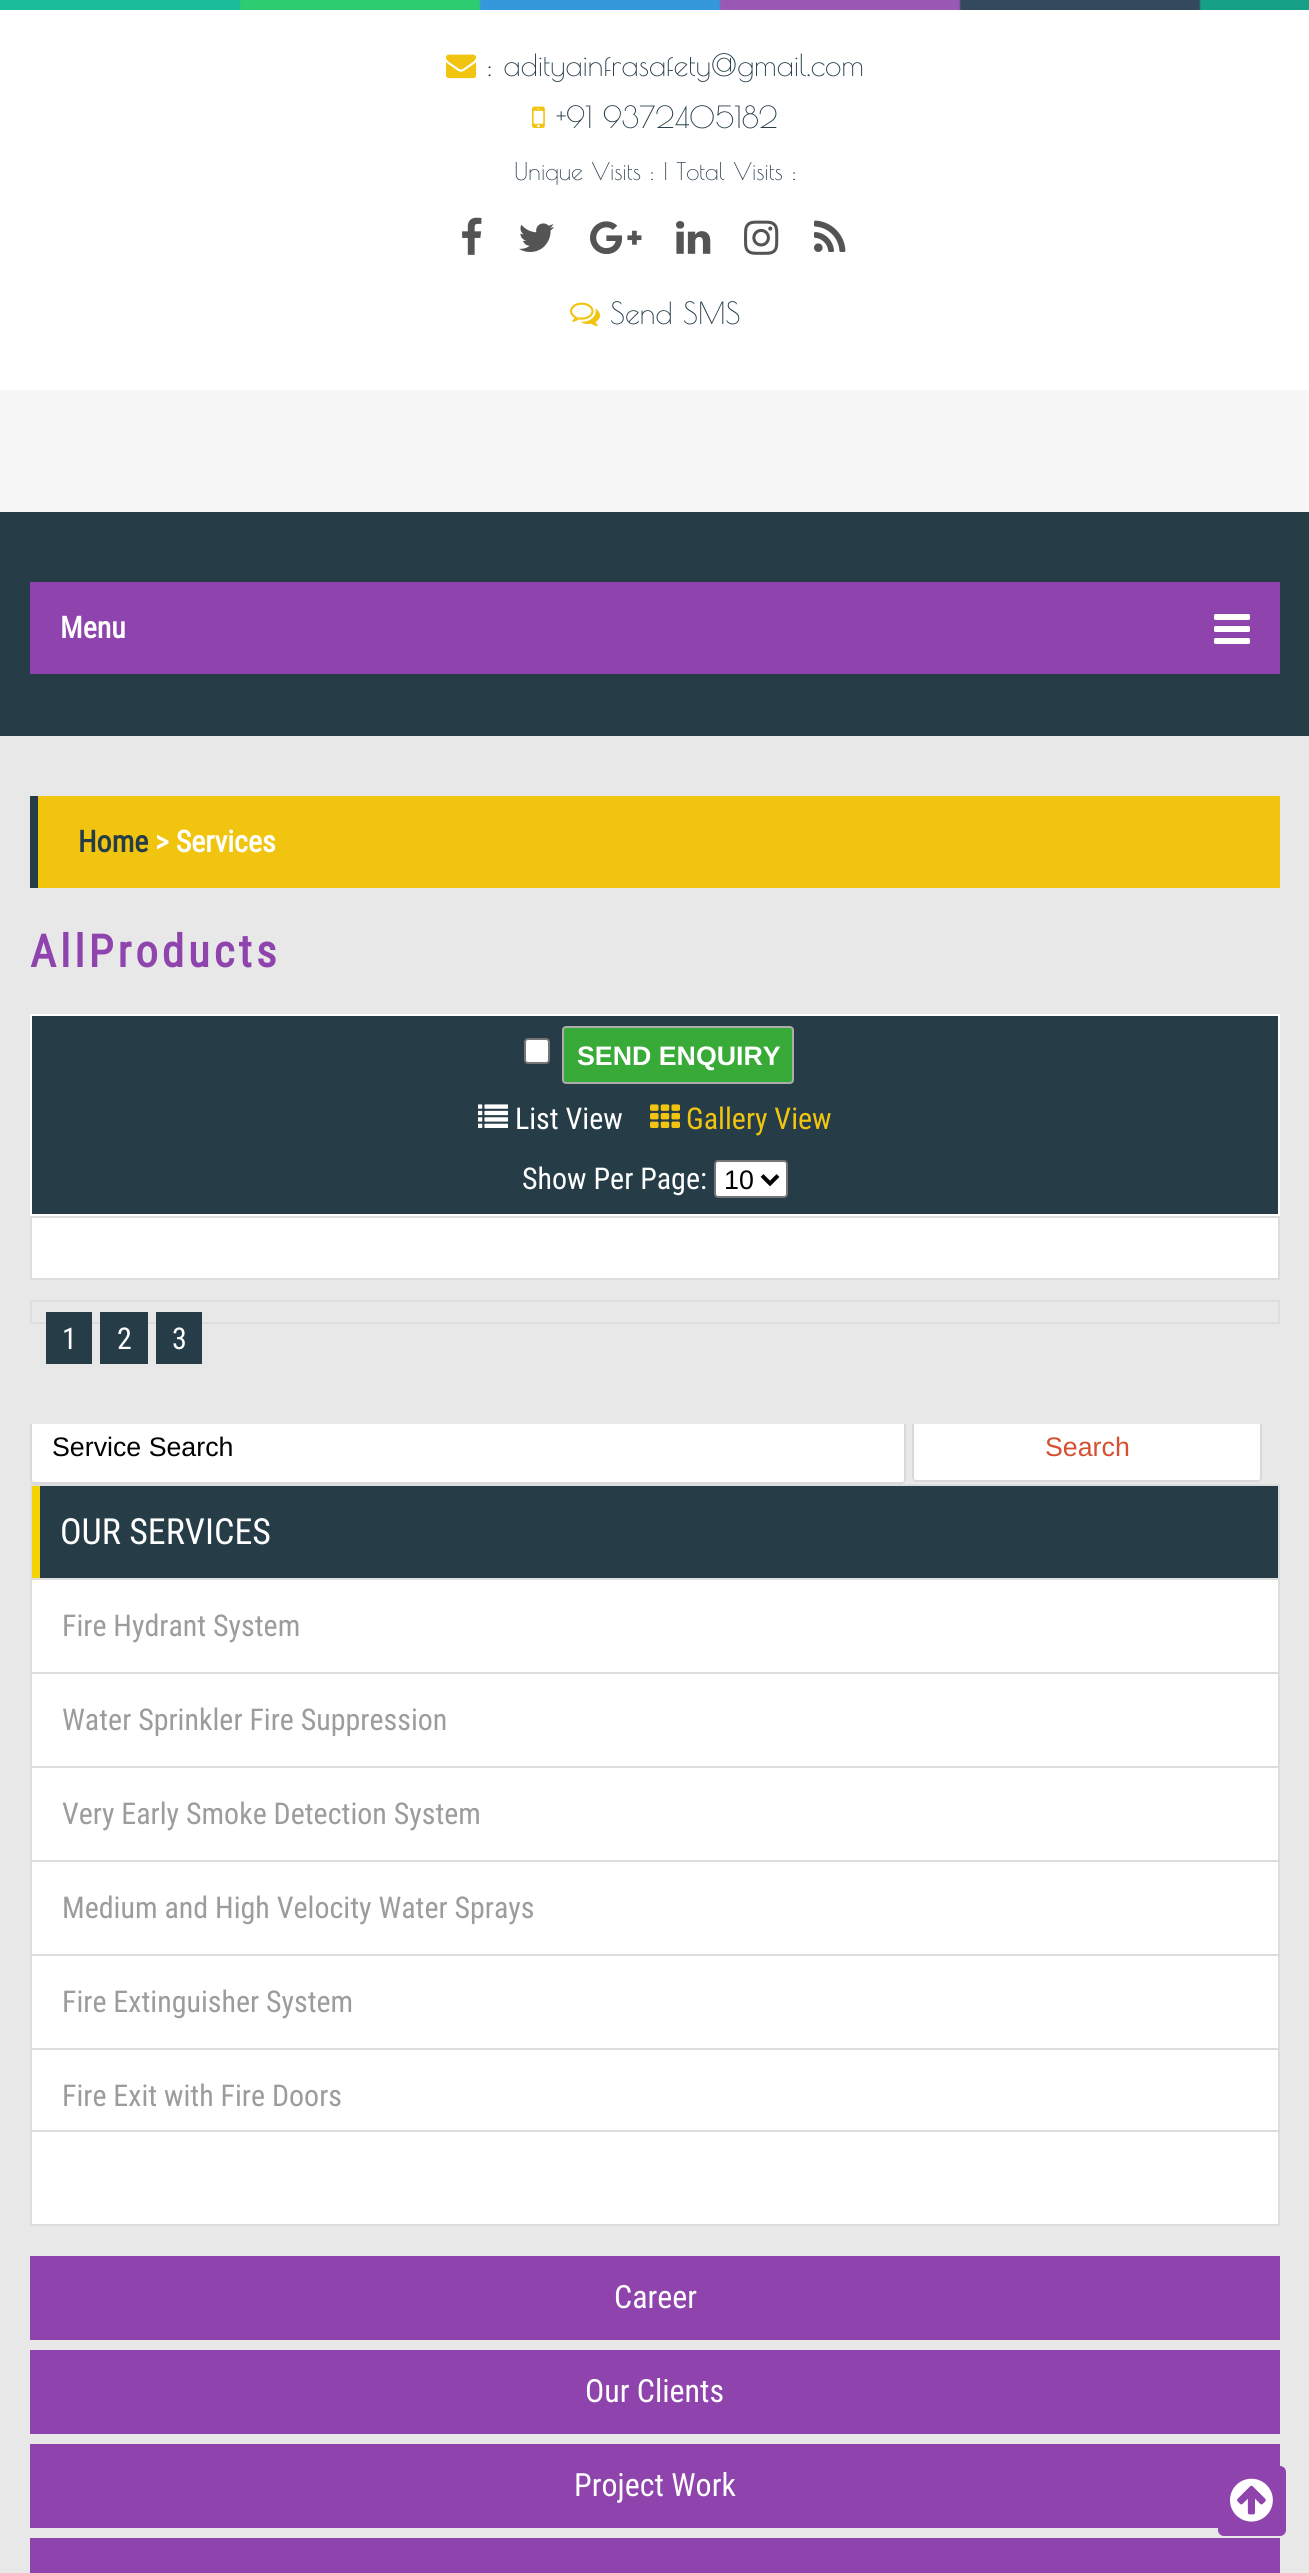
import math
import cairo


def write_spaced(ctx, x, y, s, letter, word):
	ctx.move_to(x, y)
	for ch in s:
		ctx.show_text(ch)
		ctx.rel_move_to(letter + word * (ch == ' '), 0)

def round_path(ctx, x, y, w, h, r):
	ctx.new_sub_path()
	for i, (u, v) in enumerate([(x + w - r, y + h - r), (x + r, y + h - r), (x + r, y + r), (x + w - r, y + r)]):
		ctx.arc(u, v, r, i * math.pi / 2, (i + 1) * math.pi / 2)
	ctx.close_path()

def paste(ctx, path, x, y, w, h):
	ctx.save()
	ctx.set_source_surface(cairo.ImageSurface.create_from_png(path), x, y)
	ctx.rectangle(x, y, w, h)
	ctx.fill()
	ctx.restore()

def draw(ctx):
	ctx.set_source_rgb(1, 1, 1)
	ctx.paint()
	paste(ctx, 'media/1.png', 0, 0, 1309, 10)
	paste(ctx, 'media/2.png', 446, 54, 30, 25)
	ctx.select_font_face('Poiret One')
	ctx.set_font_size(30)
	ctx.set_source_rgb(0.149, 0.239, 0.282)
	ctx.move_to(486, 76)
	ctx.show_text(': adityainfrasafety@gmail.com')
	paste(ctx, 'media/3.png', 532, 106, 13, 22)
	ctx.move_to(556, 128)
	ctx.show_text('+91 9372405182')
	ctx.set_font_size(24)
	ctx.move_to(514, 180)
	ctx.show_text('Unique Visits : | Total Visits :')
	paste(ctx, 'media/4.png', 462, 217, 20, 38)
	paste(ctx, 'media/5.png', 519, 223, 35, 29)
	paste(ctx, 'media/6.png', 590, 221, 52, 34)
	paste(ctx, 'media/7.png', 676, 221, 35, 33)
	paste(ctx, 'media/8.png', 744, 220, 35, 35)
	paste(ctx, 'media/9.png', 814, 220, 32, 32)
	paste(ctx, 'media/10.png', 570, 302, 30, 25)
	ctx.set_font_size(30)
	ctx.move_to(610, 324)
	ctx.show_text('Send SMS')
	ctx.set_source_rgb(0.965, 0.965, 0.965)
	ctx.rectangle(0, 390, 1309, 122)
	ctx.fill()
	ctx.set_source_rgb(0.149, 0.239, 0.282)
	ctx.rectangle(0, 512, 1309, 224)
	ctx.fill()
	ctx.set_source_rgb(0.561, 0.267, 0.678)
	ctx.rectangle(30, 582, 1250, 92)
	ctx.fill()
	ctx.select_font_face('Roboto Condensed', cairo.FONT_SLANT_NORMAL, cairo.FONT_WEIGHT_BOLD)
	ctx.set_source_rgb(1, 1, 1)
	ctx.move_to(60, 638)
	ctx.show_text('Menu')
	paste(ctx, 'media/11.png', 1214, 614, 36, 30)
	ctx.set_source_rgb(0.91, 0.91, 0.91)
	ctx.rectangle(0, 736, 1309, 1837)
	ctx.fill()
	ctx.set_source_rgb(0.945, 0.769, 0.059)
	ctx.rectangle(38, 796, 1242, 92)
	ctx.fill()
	ctx.set_source_rgb(0.149, 0.239, 0.282)
	ctx.rectangle(30, 796, 8, 92)
	ctx.fill()
	ctx.move_to(78, 852)
	ctx.show_text('Home')
	ctx.set_source_rgb(1, 1, 1)
	ctx.move_to(155, 852)
	ctx.show_text('> Services')
	ctx.set_font_size(45)
	ctx.set_source_rgb(0.561, 0.267, 0.678)
	write_spaced(ctx, 30, 967, 'AllProducts', 4, 0)
	ctx.set_source_rgb(0.149, 0.239, 0.282)
	ctx.rectangle(31, 1015, 1248, 200)
	ctx.fill_preserve()
	ctx.set_source_rgb(1, 1, 1)
	ctx.stroke()
	round_path(ctx, 525, 1039, 24, 24, 3)
	ctx.fill_preserve()
	ctx.set_source_rgb(0.463, 0.463, 0.463)
	ctx.stroke()
	ctx.set_source_rgb(0.22, 0.667, 0.22)
	round_path(ctx, 563, 1027, 230, 56, 3)
	ctx.fill_preserve()
	ctx.set_source_rgb(0.675, 0.675, 0.675)
	ctx.stroke()
	ctx.select_font_face('Liberation Sans', cairo.FONT_SLANT_NORMAL, cairo.FONT_WEIGHT_BOLD)
	ctx.set_font_size(26.75)
	ctx.set_source_rgb(1, 1, 1)
	ctx.move_to(577, 1065)
	ctx.show_text('SEND ENQUIRY')
	paste(ctx, 'media/12.png', 478, 1104, 30, 24)
	ctx.select_font_face('Roboto Condensed')
	ctx.set_font_size(30)
	ctx.move_to(515, 1129)
	ctx.show_text('List View')
	paste(ctx, 'media/13.png', 650, 1104, 30, 24)
	ctx.set_source_rgb(0.945, 0.769, 0.059)
	ctx.move_to(686, 1129)
	ctx.show_text('Gallery View')
	ctx.set_source_rgb(1, 1, 1)
	ctx.move_to(522, 1189)
	ctx.show_text('Show Per Page:')
	round_path(ctx, 715, 1161, 72, 36, 3)
	ctx.fill_preserve()
	ctx.set_source_rgb(0.463, 0.463, 0.463)
	ctx.stroke()
	ctx.new_path()
	ctx.move_to(762, 1175.5)
	ctx.line_to(770, 1183.5)
	ctx.line_to(778, 1175.5)
	ctx.set_source_rgb(0, 0, 0)
	ctx.set_line_width(4)
	ctx.stroke()
	ctx.select_font_face('Liberation Sans')
	ctx.set_font_size(26.75)
	ctx.move_to(724, 1189)
	ctx.show_text('10')
	ctx.set_source_rgb(1, 1, 1)
	ctx.rectangle(31, 1217, 1248, 62)
	ctx.fill_preserve()
	ctx.set_source_rgb(0.867, 0.867, 0.867)
	ctx.set_line_width(2)
	ctx.stroke()
	ctx.rectangle(31, 1301, 1248, 22)
	ctx.stroke()
	ctx.set_source_rgb(0.149, 0.239, 0.282)
	ctx.rectangle(46, 1312, 46, 52)
	ctx.fill()
	ctx.select_font_face('Roboto Condensed')
	ctx.set_font_size(30)
	ctx.set_source_rgb(1, 1, 1)
	ctx.move_to(62, 1349)
	ctx.show_text('1')
	ctx.set_source_rgb(0.149, 0.239, 0.282)
	ctx.rectangle(100, 1312, 48, 52)
	ctx.fill()
	ctx.set_source_rgb(1, 1, 1)
	ctx.move_to(117, 1349)
	ctx.show_text('2')
	ctx.set_source_rgb(0.149, 0.239, 0.282)
	ctx.rectangle(156, 1312, 46, 52)
	ctx.fill()
	ctx.set_source_rgb(1, 1, 1)
	ctx.move_to(172, 1349)
	ctx.show_text('3')
	ctx.new_path()
	ctx.move_to(30, 1424)
	ctx.line_to(906, 1424)
	ctx.line_to(906, 1480)
	ctx.curve_to(906, 1482, 904, 1484, 902, 1484)
	ctx.line_to(34, 1484)
	ctx.curve_to(32, 1484, 30, 1482, 30, 1480)
	ctx.close_path()
	ctx.fill()
	ctx.save()
	ctx.rectangle(30, 1424, 1250, 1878)
	ctx.clip()
	round_path(ctx, 31, 1411, 874, 72, 3)
	ctx.set_source_rgb(0.851, 0.851, 0.851)
	ctx.stroke()
	ctx.restore()
	ctx.select_font_face('Liberation Sans')
	ctx.set_font_size(26.75)
	ctx.set_source_rgb(0, 0, 0)
	ctx.move_to(52, 1456)
	ctx.show_text('Service Search')
	ctx.set_source_rgb(1, 1, 1)
	ctx.new_path()
	ctx.move_to(912, 1424)
	ctx.line_to(1262, 1424)
	ctx.line_to(1262, 1478)
	ctx.curve_to(1262, 1480, 1260, 1482, 1258, 1482)
	ctx.line_to(916, 1482)
	ctx.curve_to(914, 1482, 912, 1480, 912, 1478)
	ctx.close_path()
	ctx.fill()
	ctx.save()
	ctx.rectangle(30, 1424, 1250, 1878)
	ctx.clip()
	round_path(ctx, 913, 1413, 348, 68, 3)
	ctx.set_source_rgb(0.851, 0.851, 0.851)
	ctx.stroke()
	ctx.restore()
	ctx.set_source_rgb(0.835, 0.31, 0.188)
	ctx.move_to(1045, 1456)
	ctx.show_text('Search')
	ctx.rectangle(31, 1485, 1248, 740)
	ctx.set_source_rgb(0.867, 0.867, 0.867)
	ctx.stroke()
	ctx.set_source_rgb(0.149, 0.239, 0.282)
	ctx.rectangle(40, 1486, 1238, 92)
	ctx.fill()
	ctx.set_source_rgb(0.953, 0.827, 0.012)
	ctx.rectangle(32, 1486, 8, 92)
	ctx.fill()
	ctx.select_font_face('Roboto Condensed')
	ctx.set_font_size(36)
	ctx.set_source_rgb(1, 1, 1)
	ctx.move_to(60, 1544)
	ctx.show_text('OUR SERVICES')
	ctx.rectangle(32, 1580, 1246, 92)
	ctx.fill()
	ctx.set_source_rgb(0.867, 0.867, 0.867)
	ctx.rectangle(32, 1578, 1246, 2)
	ctx.fill()
	ctx.set_font_size(30)
	ctx.set_source_rgb(0.612, 0.612, 0.612)
	ctx.move_to(62, 1636)
	ctx.show_text('Fire Hydrant System')
	ctx.set_source_rgb(1, 1, 1)
	ctx.rectangle(32, 1674, 1246, 92)
	ctx.fill()
	ctx.set_source_rgb(0.867, 0.867, 0.867)
	ctx.rectangle(32, 1672, 1246, 2)
	ctx.fill()
	ctx.set_source_rgb(0.612, 0.612, 0.612)
	ctx.move_to(62, 1730)
	ctx.show_text('Water Sprinkler Fire Suppression')
	ctx.set_source_rgb(1, 1, 1)
	ctx.rectangle(32, 1768, 1246, 92)
	ctx.fill()
	ctx.set_source_rgb(0.867, 0.867, 0.867)
	ctx.rectangle(32, 1766, 1246, 2)
	ctx.fill()
	ctx.set_source_rgb(0.612, 0.612, 0.612)
	ctx.move_to(62, 1824)
	ctx.show_text('Very Early Smoke Detection System')
	ctx.set_source_rgb(1, 1, 1)
	ctx.rectangle(32, 1862, 1246, 92)
	ctx.fill()
	ctx.set_source_rgb(0.867, 0.867, 0.867)
	ctx.rectangle(32, 1860, 1246, 2)
	ctx.fill()
	ctx.set_source_rgb(0.612, 0.612, 0.612)
	ctx.move_to(62, 1918)
	ctx.show_text('Medium and High Velocity Water Sprays')
	ctx.set_source_rgb(1, 1, 1)
	ctx.rectangle(32, 1956, 1246, 92)
	ctx.fill()
	ctx.set_source_rgb(0.867, 0.867, 0.867)
	ctx.rectangle(32, 1954, 1246, 2)
	ctx.fill()
	ctx.set_source_rgb(0.612, 0.612, 0.612)
	ctx.move_to(62, 2012)
	ctx.show_text('Fire Extinguisher System')
	ctx.set_source_rgb(1, 1, 1)
	ctx.rectangle(32, 2050, 1246, 80)
	ctx.fill()
	ctx.set_source_rgb(0.867, 0.867, 0.867)
	ctx.rectangle(32, 2048, 1246, 2)
	ctx.fill()
	ctx.set_source_rgb(0.612, 0.612, 0.612)
	ctx.move_to(62, 2106)
	ctx.show_text('Fire Exit with Fire Doors')
	ctx.set_source_rgb(1, 1, 1)
	ctx.rectangle(32, 2132, 1246, 92)
	ctx.fill()
	ctx.set_source_rgb(0.867, 0.867, 0.867)
	ctx.rectangle(32, 2130, 1246, 2)
	ctx.fill()
	ctx.set_source_rgb(0.561, 0.267, 0.678)
	ctx.rectangle(30, 2256, 1250, 84)
	ctx.fill()
	ctx.set_font_size(32)
	ctx.set_source_rgb(1, 1, 1)
	ctx.move_to(614, 2308)
	ctx.show_text('Career')
	ctx.set_source_rgb(0.561, 0.267, 0.678)
	ctx.rectangle(30, 2350, 1250, 84)
	ctx.fill()
	ctx.set_source_rgb(1, 1, 1)
	ctx.move_to(585, 2402)
	ctx.show_text('Our Clients')
	ctx.set_source_rgb(0.561, 0.267, 0.678)
	ctx.rectangle(30, 2444, 1250, 84)
	ctx.fill()
	ctx.set_source_rgb(1, 1, 1)
	ctx.move_to(574, 2496)
	ctx.show_text('Project Work')
	ctx.set_source_rgb(0.561, 0.267, 0.678)
	ctx.rectangle(30, 2538, 1250, 35)
	ctx.fill()
	round_path(ctx, 1218, 2466, 68, 70, 6)
	ctx.fill()
	paste(ctx, 'media/14.png', 1230, 2478, 43, 44)


surface = cairo.ImageSurface(cairo.FORMAT_RGB24, 1309, 2573)
ctx = cairo.Context(surface)
options = cairo.FontOptions()
options.set_hint_metrics(cairo.HINT_METRICS_OFF)
options.set_hint_style(cairo.HINT_STYLE_NONE)
ctx.set_font_options(options)
ctx.set_miter_limit(4)
draw(ctx)
surface.write_to_png('image.png')
